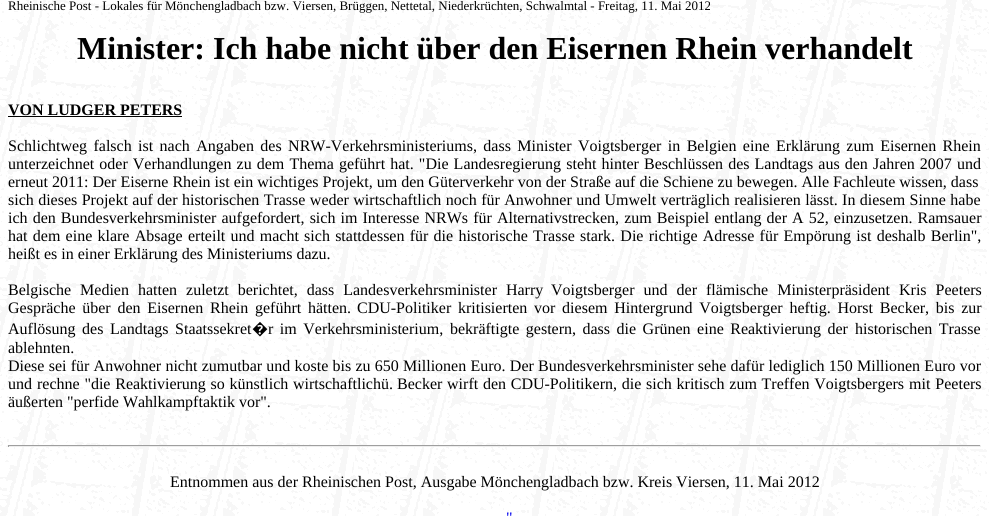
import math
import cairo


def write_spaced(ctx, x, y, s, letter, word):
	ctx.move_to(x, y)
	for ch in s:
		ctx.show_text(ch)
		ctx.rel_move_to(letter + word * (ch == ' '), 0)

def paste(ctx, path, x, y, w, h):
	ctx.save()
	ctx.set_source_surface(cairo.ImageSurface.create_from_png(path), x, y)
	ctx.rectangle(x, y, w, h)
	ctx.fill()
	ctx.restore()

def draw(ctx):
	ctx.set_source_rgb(1, 1, 1)
	ctx.paint()
	paste(ctx, 'media/1.png', 0, 0, 989, 516)
	ctx.select_font_face('Liberation Serif')
	ctx.set_font_size(13)
	ctx.set_source_rgb(0, 0, 0)
	ctx.move_to(8, 10)
	ctx.show_text('Rheinische Post - Lokales für Mönchengladbach bzw. Viersen, Brüggen, Nettetal, Niederkrüchten, Schwalmtal - Freitag, 11. Mai 2012')
	ctx.select_font_face('Liberation Serif', cairo.FONT_SLANT_NORMAL, cairo.FONT_WEIGHT_BOLD)
	ctx.set_font_size(32)
	ctx.move_to(77, 59)
	ctx.show_text('Minister: Ich habe nicht über den Eisernen Rhein verhandelt')
	ctx.set_font_size(16)
	ctx.move_to(8, 115)
	ctx.show_text('VON LUDGER PETERS')
	ctx.rectangle(8, 116, 174, 1)
	ctx.fill()
	ctx.select_font_face('Liberation Serif')
	write_spaced(ctx, 8, 151, 'Schlichtweg falsch ist nach Angaben des NRW-Verkehrsministeriums, dass Minister Voigtsberger in Belgien eine Erklärung zum Eisernen Rhein', 0, 2.4)
	write_spaced(ctx, 8, 169, 'unterzeichnet oder Verhandlungen zu dem Thema geführt hat. "Die Landesregierung steht hinter Beschlüssen des Landtags aus den Jahren 2007 und', 0, 1.1)
	ctx.move_to(8, 187)
	ctx.show_text('erneut 2011: Der Eiserne Rhein ist ein wichtiges Projekt, um den Güterverkehr von der Straße auf die Schiene zu bewegen. Alle Fachleute wissen, dass')
	write_spaced(ctx, 8, 205, 'sich dieses Projekt auf der historischen Trasse weder wirtschaftlich noch für Anwohner und Umwelt verträglich realisieren lässt. In diesem Sinne habe', 0, 0.4)
	write_spaced(ctx, 8, 223, 'ich den Bundesverkehrsminister aufgefordert, sich im Interesse NRWs für Alternativstrecken, zum Beispiel entlang der A 52, einzusetzen. Ramsauer', 0, 1.1)
	write_spaced(ctx, 8, 241, 'hat dem eine klare Absage erteilt und macht sich stattdessen für die historische Trasse stark. Die richtige Adresse für Empörung ist deshalb Berlin",', 0, 1.25)
	ctx.move_to(8, 259)
	ctx.show_text('heißt es in einer Erklärung des Ministeriums dazu.')
	write_spaced(ctx, 8, 295, 'Belgische Medien hatten zuletzt berichtet, dass Landesverkehrsminister Harry', 0, 5)
	write_spaced(ctx, 551, 295, 'Voigtsberger und der flämische Ministerpräsident Kris Peeters', 0, 5)
	write_spaced(ctx, 8, 313, 'Gespräche über den Eisernen Rhein geführt hätten.', 0, 2.75)
	write_spaced(ctx, 357, 313, 'CDU-Politiker kritisierten vor diesem Hintergrund Voigtsberger heftig. Horst Becker, bis zur', 0, 2.75)
	write_spaced(ctx, 8, 334, 'Auflösung des Landtags Staatssekret', 0, 2.5)
	ctx.select_font_face('Noto Sans')
	ctx.move_to(252, 334)
	ctx.show_text('�')
	ctx.select_font_face('Liberation Serif')
	for x, y, s in [
		(268, 334, 'r im Verkehrsministerium,'),
		(450, 334, 'bekräftigte gestern, dass die Grünen eine Reaktivierung der'),
		(855, 334, 'historischen Trasse'),
	]:
		write_spaced(ctx, x, y, s, 0, 2.5)
	ctx.move_to(8, 353)
	ctx.show_text('ablehnten.')
	write_spaced(ctx, 8, 371, 'Diese sei für Anwohner nicht zumutbar und koste bis zu 650 Millionen Euro. Der Bundesverkehrsminister sehe dafür lediglich 150 Millionen Euro vor', 0, 0.25)
	ctx.move_to(8, 389)
	ctx.show_text('und')
	write_spaced(ctx, 37, 389, 'rechne "die Reaktivierung so künstlich wirtschaftlichü.', 0, 0.75)
	write_spaced(ctx, 397, 389, 'Becker wirft den CDU-Politikern, die sich kritisch zum Treffen Voigtsbergers', 0, 0.75)
	write_spaced(ctx, 909, 389, 'mit Peeters', 0, 1)
	ctx.move_to(8, 407)
	ctx.show_text('äußerten "perfide Wahlkampftaktik vor".')
	ctx.set_source_rgb(0.624, 0.624, 0.624)
	ctx.rectangle(8, 445, 973, 1)
	ctx.fill()
	ctx.set_source_rgb(0.933, 0.933, 0.933)
	ctx.rectangle(980, 445, 1, 2)
	ctx.rectangle(8, 446, 973, 1)
	ctx.fill()
	ctx.set_source_rgb(0.624, 0.624, 0.624)
	ctx.rectangle(8, 445, 1, 2)
	ctx.fill()
	ctx.set_source_rgb(0, 0, 0)
	ctx.move_to(170, 487)
	ctx.show_text('Entnommen aus der Rheinischen Post, Ausgabe Mönchengladbach bzw. Kreis Viersen, 11. Mai 2012')
	ctx.set_source_rgb(0, 0, 0.933)
	ctx.move_to(506, 523)
	ctx.show_text('"')


surface = cairo.ImageSurface(cairo.FORMAT_RGB24, 989, 516)
ctx = cairo.Context(surface)
options = cairo.FontOptions()
options.set_hint_metrics(cairo.HINT_METRICS_OFF)
options.set_hint_style(cairo.HINT_STYLE_NONE)
ctx.set_font_options(options)
ctx.set_miter_limit(4)
draw(ctx)
surface.write_to_png('image.png')
